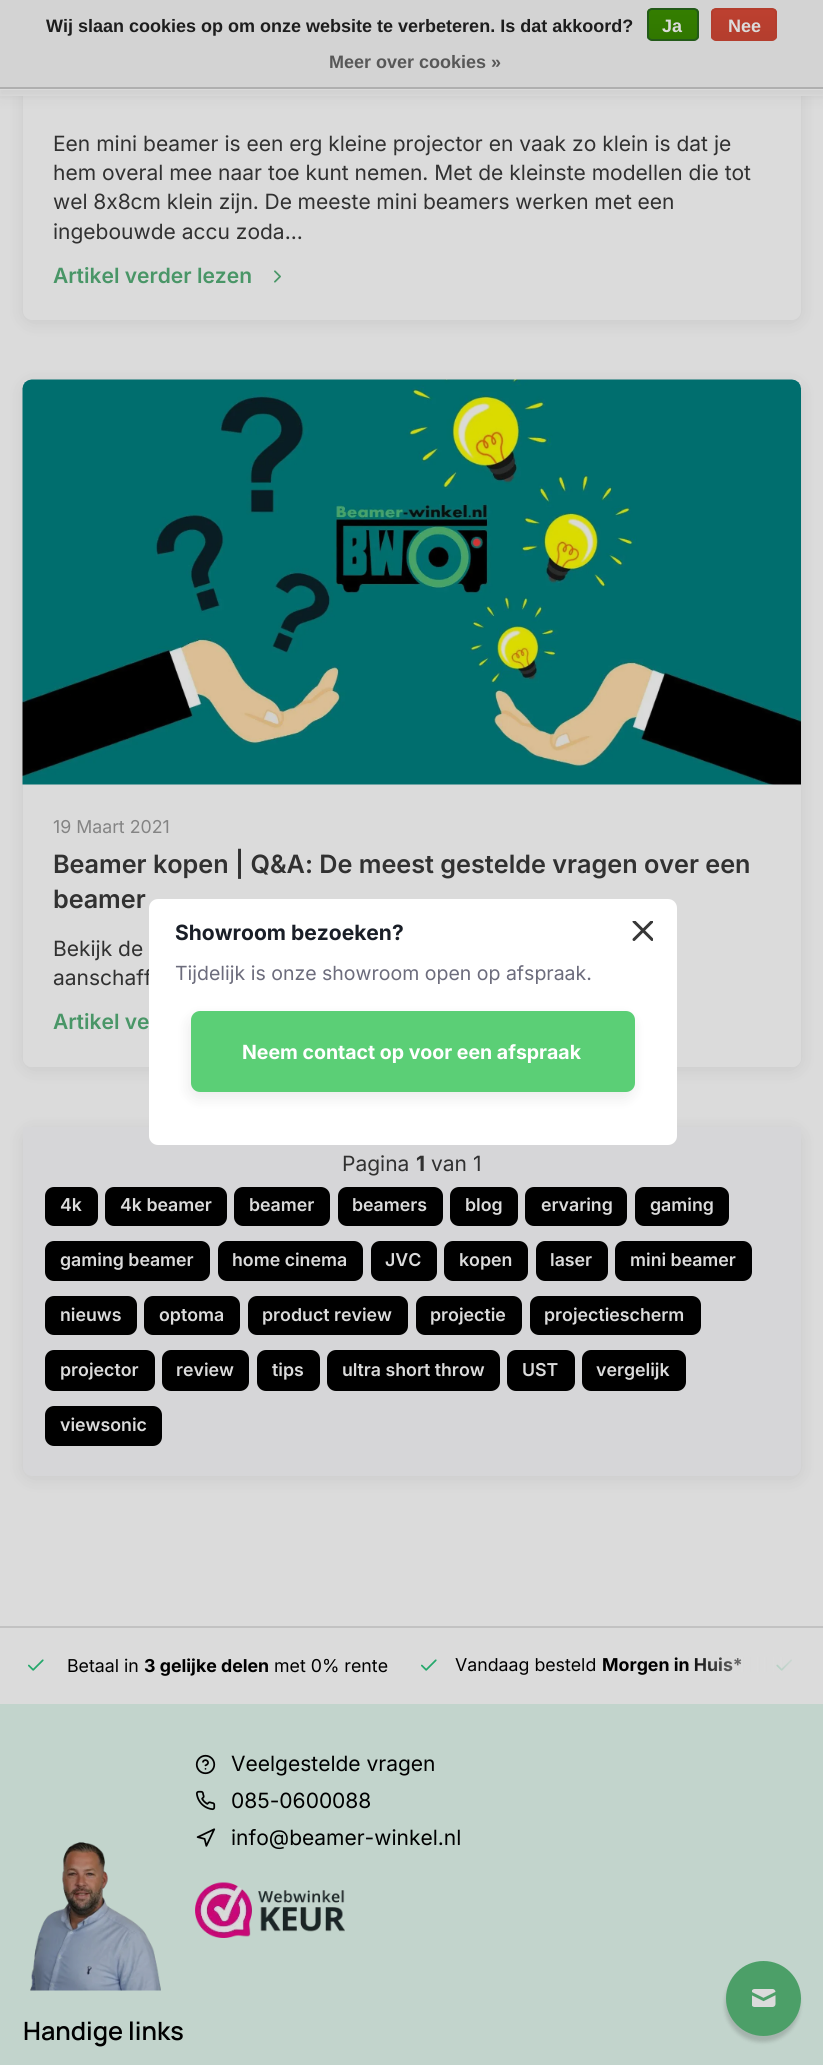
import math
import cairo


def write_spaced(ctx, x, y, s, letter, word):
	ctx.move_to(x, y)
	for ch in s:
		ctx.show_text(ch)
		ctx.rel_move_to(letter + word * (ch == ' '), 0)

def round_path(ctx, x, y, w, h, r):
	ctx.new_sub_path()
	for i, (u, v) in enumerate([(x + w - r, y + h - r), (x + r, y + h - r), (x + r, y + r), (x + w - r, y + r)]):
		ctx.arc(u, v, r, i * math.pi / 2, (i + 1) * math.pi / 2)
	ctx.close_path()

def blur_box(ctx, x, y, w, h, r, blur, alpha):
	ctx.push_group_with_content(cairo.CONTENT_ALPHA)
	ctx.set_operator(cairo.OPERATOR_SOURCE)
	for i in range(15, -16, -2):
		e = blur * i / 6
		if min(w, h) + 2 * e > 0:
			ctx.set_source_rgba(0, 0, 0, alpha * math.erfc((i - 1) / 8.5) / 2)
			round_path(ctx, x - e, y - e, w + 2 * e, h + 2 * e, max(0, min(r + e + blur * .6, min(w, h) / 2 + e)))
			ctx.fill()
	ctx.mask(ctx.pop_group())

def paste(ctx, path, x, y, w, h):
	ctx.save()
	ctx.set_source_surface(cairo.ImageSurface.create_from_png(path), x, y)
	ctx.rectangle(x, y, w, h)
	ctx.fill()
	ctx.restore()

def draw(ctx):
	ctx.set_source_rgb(0.859, 0.859, 0.859)
	ctx.paint()
	ctx.set_source_rgb(0, 0, 0)
	blur_box(ctx, 23, -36, 778, 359, 9, 9, 0.08)
	ctx.set_source_rgb(0.859, 0.859, 0.859)
	ctx.new_path()
	ctx.move_to(23, -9)
	ctx.line_to(801, -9)
	ctx.line_to(801, 311)
	ctx.curve_to(801, 316, 797, 320, 792, 320)
	ctx.line_to(32, 320)
	ctx.curve_to(27, 320, 23, 316, 23, 311)
	ctx.close_path()
	ctx.fill()
	ctx.set_source_rgb(0, 0, 0)
	blur_box(ctx, 0, 8, 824, 90, 0, 7.5, 0.05)
	ctx.set_source_rgb(0.859, 0.859, 0.859)
	ctx.rectangle(0, 90, 823, 6)
	ctx.fill()
	ctx.set_source_rgb(0, 0, 0)
	blur_box(ctx, 0, 5, 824, 90, 0, 3, 0.05)
	ctx.set_source_rgb(0.827, 0.827, 0.827)
	ctx.rectangle(0, 0, 823, 87)
	ctx.fill()
	ctx.set_source_rgb(0.686, 0.686, 0.686)
	ctx.rectangle(0, 87, 823, 2)
	ctx.fill()
	ctx.select_font_face('Liberation Sans', cairo.FONT_SLANT_NORMAL, cairo.FONT_WEIGHT_BOLD)
	ctx.set_font_size(18)
	ctx.set_source_rgb(0.114, 0.114, 0.114)
	ctx.move_to(46, 32)
	ctx.show_text('Wij slaan cookies op om onze website te verbeteren. Is dat akkoord?')
	ctx.save()
	round_path(ctx, 647, 8, 52, 33, 5)
	ctx.clip()
	gradient = cairo.LinearGradient(673, 9, 673, 39)
	gradient.add_color_stop_rgba(0, 0.204, 0.494, 0, 1)
	gradient.add_color_stop_rgba(1, 0.192, 0.467, 0, 1)
	ctx.set_source(gradient)
	ctx.rectangle(647, 9, 52, 30)
	ctx.fill()
	ctx.restore()
	round_path(ctx, 648, 9, 50, 31, 4)
	ctx.set_source_rgb(0.137, 0.353, 0.098)
	ctx.stroke()
	ctx.set_source_rgb(0.859, 0.859, 0.859)
	ctx.move_to(662, 32)
	ctx.show_text('Ja')
	ctx.save()
	round_path(ctx, 711, 8, 66, 33, 5)
	ctx.clip()
	gradient = cairo.LinearGradient(744, 9, 744, 39)
	gradient.add_color_stop_rgba(0, 0.741, 0.251, 0.188, 1)
	gradient.add_color_stop_rgba(1, 0.706, 0.243, 0.18, 1)
	ctx.set_source(gradient)
	ctx.rectangle(711, 9, 66, 30)
	ctx.fill()
	ctx.restore()
	round_path(ctx, 712, 9, 64, 31, 4)
	ctx.set_source_rgb(0.706, 0.243, 0.18)
	ctx.stroke()
	ctx.set_source_rgb(0.859, 0.859, 0.859)
	ctx.move_to(728, 32)
	ctx.show_text('Nee')
	ctx.set_source_rgb(0.345, 0.345, 0.345)
	ctx.move_to(329, 68)
	ctx.show_text('Meer over cookies »')
	ctx.set_source_rgb(0.859, 0.859, 0.859)
	ctx.rectangle(0, 89, 823, 1)
	ctx.fill()
	ctx.select_font_face('Inter')
	ctx.set_font_size(21)
	ctx.set_source_rgb(0.192, 0.192, 0.192)
	ctx.move_to(53, 151)
	ctx.show_text('Een mini beamer is een erg kleine projector en vaak zo klein is dat je')
	ctx.move_to(53, 180)
	ctx.show_text('hem overal mee naar toe kunt nemen. Met de kleinste modellen die tot')
	write_spaced(ctx, 53, 209, 'wel 8x8cm klein zijn. De meeste mini beamers werken met een', 0, -0.25)
	ctx.move_to(53, 239)
	ctx.show_text('ingebouwde accu zoda...')
	ctx.select_font_face('Inter SemiBold')
	ctx.set_source_rgb(0.286, 0.588, 0.404)
	ctx.move_to(53, 283)
	ctx.show_text('Artikel verder lezen')
	paste(ctx, 'media/1.png', 274, 270, 7, 13)
	ctx.save()
	ctx.set_fill_rule(cairo.FILL_RULE_EVEN_ODD)
	ctx.new_path()
	ctx.move_to(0, 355)
	ctx.line_to(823, 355)
	ctx.line_to(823, 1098)
	ctx.line_to(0, 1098)
	ctx.close_path()
	ctx.move_to(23, 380)
	ctx.line_to(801, 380)
	ctx.line_to(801, 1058)
	ctx.curve_to(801, 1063, 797, 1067, 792, 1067)
	ctx.line_to(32, 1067)
	ctx.curve_to(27, 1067, 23, 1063, 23, 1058)
	ctx.close_path()
	ctx.clip()
	ctx.set_source_rgb(0, 0, 0)
	blur_box(ctx, 23, 383, 778, 687, 9, 9, 0.08)
	ctx.restore()
	paste(ctx, 'media/2.png', 22, 379, 780, 406)
	ctx.set_source_rgb(0.859, 0.859, 0.859)
	ctx.new_path()
	ctx.move_to(23, 785)
	ctx.line_to(801, 785)
	ctx.line_to(801, 1058)
	ctx.curve_to(801, 1063, 797, 1067, 792, 1067)
	ctx.line_to(32, 1067)
	ctx.curve_to(27, 1067, 23, 1063, 23, 1058)
	ctx.close_path()
	ctx.fill()
	ctx.select_font_face('Inter')
	ctx.set_font_size(17.75)
	ctx.set_source_rgb(0.518, 0.518, 0.518)
	ctx.move_to(53, 833)
	ctx.show_text('19 Maart 2021')
	ctx.select_font_face('Inter SemiBold')
	ctx.set_font_size(25.2)
	ctx.set_source_rgb(0.192, 0.192, 0.192)
	ctx.move_to(53, 873)
	ctx.show_text('Beamer kopen | Q&A: De meest gestelde vragen over een')
	ctx.move_to(53, 908)
	ctx.show_text('beamer')
	ctx.select_font_face('Inter')
	ctx.set_font_size(21)
	ctx.move_to(53, 956)
	ctx.show_text('Bekijk de')
	ctx.move_to(53, 985)
	ctx.show_text('aanschaff')
	ctx.select_font_face('Inter SemiBold')
	ctx.set_source_rgb(0.286, 0.588, 0.404)
	ctx.move_to(53, 1029)
	ctx.show_text('Artikel ve')
	ctx.set_source_rgb(0, 0, 0)
	blur_box(ctx, 23, 1130, 778, 349, 9, 9, 0.08)
	ctx.set_source_rgb(0.839, 0.839, 0.847)
	ctx.new_path()
	ctx.move_to(23, 1127)
	ctx.line_to(801, 1127)
	ctx.line_to(801, 1467)
	ctx.curve_to(801, 1472, 797, 1476, 792, 1476)
	ctx.line_to(32, 1476)
	ctx.curve_to(27, 1476, 23, 1472, 23, 1467)
	ctx.close_path()
	ctx.fill()
	ctx.select_font_face('Inter')
	ctx.set_source_rgb(0.192, 0.192, 0.192)
	ctx.move_to(342, 1171)
	ctx.show_text('Pagina')
	ctx.select_font_face('Inter', cairo.FONT_SLANT_NORMAL, cairo.FONT_WEIGHT_BOLD)
	ctx.move_to(416, 1171)
	ctx.show_text('1')
	ctx.select_font_face('Inter')
	ctx.move_to(431, 1171)
	ctx.show_text('van 1')
	ctx.set_source_rgb(0, 0, 0)
	round_path(ctx, 45, 1187, 53, 39, 9)
	ctx.fill()
	ctx.select_font_face('Inter SemiBold')
	ctx.set_font_size(17.75)
	ctx.set_source_rgb(0.859, 0.859, 0.859)
	ctx.move_to(60, 1211)
	ctx.show_text('4k')
	ctx.set_source_rgb(0, 0, 0)
	round_path(ctx, 105, 1187, 122, 39, 9)
	ctx.fill()
	ctx.set_source_rgb(0.859, 0.859, 0.859)
	ctx.move_to(120, 1211)
	ctx.show_text('4k beamer')
	ctx.set_source_rgb(0, 0, 0)
	round_path(ctx, 234, 1187, 96, 39, 9)
	ctx.fill()
	ctx.set_source_rgb(0.859, 0.859, 0.859)
	ctx.move_to(249, 1211)
	ctx.show_text('beamer')
	ctx.set_source_rgb(0, 0, 0)
	round_path(ctx, 338, 1187, 105, 39, 9)
	ctx.fill()
	ctx.set_source_rgb(0.859, 0.859, 0.859)
	ctx.move_to(352, 1211)
	ctx.show_text('beamers')
	ctx.set_source_rgb(0, 0, 0)
	round_path(ctx, 450, 1187, 68, 39, 9)
	ctx.fill()
	ctx.set_source_rgb(0.859, 0.859, 0.859)
	ctx.move_to(465, 1211)
	ctx.show_text('blog')
	ctx.set_source_rgb(0, 0, 0)
	round_path(ctx, 525, 1187, 102, 39, 9)
	ctx.fill()
	ctx.set_source_rgb(0.859, 0.859, 0.859)
	ctx.move_to(541, 1211)
	ctx.show_text('ervaring')
	ctx.set_source_rgb(0, 0, 0)
	round_path(ctx, 635, 1187, 94, 39, 9)
	ctx.fill()
	ctx.set_source_rgb(0.859, 0.859, 0.859)
	ctx.move_to(650, 1211)
	ctx.show_text('gaming')
	ctx.set_source_rgb(0, 0, 0)
	round_path(ctx, 45, 1241, 165, 40, 9)
	ctx.fill()
	ctx.set_source_rgb(0.859, 0.859, 0.859)
	ctx.move_to(60, 1266)
	ctx.show_text('gaming beamer')
	ctx.set_source_rgb(0, 0, 0)
	round_path(ctx, 218, 1241, 145, 40, 9)
	ctx.fill()
	ctx.set_source_rgb(0.859, 0.859, 0.859)
	ctx.move_to(232, 1266)
	ctx.show_text('home cinema')
	ctx.set_source_rgb(0, 0, 0)
	round_path(ctx, 371, 1241, 66, 40, 9)
	ctx.fill()
	ctx.set_source_rgb(0.859, 0.859, 0.859)
	ctx.move_to(385, 1266)
	ctx.show_text('JVC')
	ctx.set_source_rgb(0, 0, 0)
	round_path(ctx, 444, 1241, 84, 40, 9)
	ctx.fill()
	ctx.set_source_rgb(0.859, 0.859, 0.859)
	ctx.move_to(459, 1266)
	ctx.show_text('kopen')
	ctx.set_source_rgb(0, 0, 0)
	round_path(ctx, 536, 1241, 72, 40, 9)
	ctx.fill()
	ctx.set_source_rgb(0.859, 0.859, 0.859)
	ctx.move_to(550, 1266)
	ctx.show_text('laser')
	ctx.set_source_rgb(0, 0, 0)
	round_path(ctx, 615, 1241, 137, 40, 9)
	ctx.fill()
	ctx.set_source_rgb(0.859, 0.859, 0.859)
	ctx.move_to(630, 1266)
	ctx.show_text('mini beamer')
	ctx.set_source_rgb(0, 0, 0)
	round_path(ctx, 45, 1296, 92, 39, 9)
	ctx.fill()
	ctx.set_source_rgb(0.859, 0.859, 0.859)
	ctx.move_to(60, 1321)
	ctx.show_text('nieuws')
	ctx.set_source_rgb(0, 0, 0)
	round_path(ctx, 144, 1296, 96, 39, 9)
	ctx.fill()
	ctx.set_source_rgb(0.859, 0.859, 0.859)
	ctx.move_to(159, 1321)
	ctx.show_text('optoma')
	ctx.set_source_rgb(0, 0, 0)
	round_path(ctx, 248, 1296, 160, 39, 9)
	ctx.fill()
	ctx.set_source_rgb(0.859, 0.859, 0.859)
	ctx.move_to(262, 1321)
	ctx.show_text('product review')
	ctx.set_source_rgb(0, 0, 0)
	round_path(ctx, 416, 1296, 106, 39, 9)
	ctx.fill()
	ctx.set_source_rgb(0.859, 0.859, 0.859)
	ctx.move_to(430, 1321)
	ctx.show_text('projectie')
	ctx.set_source_rgb(0, 0, 0)
	round_path(ctx, 530, 1296, 171, 39, 9)
	ctx.fill()
	ctx.set_source_rgb(0.859, 0.859, 0.859)
	ctx.move_to(544, 1321)
	ctx.show_text('projectiescherm')
	ctx.set_source_rgb(0, 0, 0)
	round_path(ctx, 45, 1350, 110, 41, 9)
	ctx.fill()
	ctx.set_source_rgb(0.859, 0.859, 0.859)
	ctx.move_to(60, 1376)
	ctx.show_text('projector')
	ctx.set_source_rgb(0, 0, 0)
	round_path(ctx, 162, 1350, 87, 41, 9)
	ctx.fill()
	ctx.set_source_rgb(0.859, 0.859, 0.859)
	ctx.move_to(176, 1376)
	ctx.show_text('review')
	ctx.set_source_rgb(0, 0, 0)
	round_path(ctx, 257, 1350, 63, 41, 9)
	ctx.fill()
	ctx.set_source_rgb(0.859, 0.859, 0.859)
	ctx.move_to(272, 1376)
	ctx.show_text('tips')
	ctx.set_source_rgb(0, 0, 0)
	round_path(ctx, 327, 1350, 173, 41, 9)
	ctx.fill()
	ctx.set_source_rgb(0.859, 0.859, 0.859)
	ctx.move_to(342, 1376)
	ctx.show_text('ultra short throw')
	ctx.set_source_rgb(0, 0, 0)
	round_path(ctx, 507, 1350, 68, 41, 9)
	ctx.fill()
	ctx.set_source_rgb(0.859, 0.859, 0.859)
	ctx.move_to(522, 1376)
	ctx.show_text('UST')
	ctx.set_source_rgb(0, 0, 0)
	round_path(ctx, 582, 1350, 104, 41, 9)
	ctx.fill()
	ctx.set_source_rgb(0.859, 0.859, 0.859)
	ctx.move_to(596, 1376)
	ctx.show_text('vergelijk')
	ctx.set_source_rgb(0, 0, 0)
	round_path(ctx, 45, 1406, 117, 40, 9)
	ctx.fill()
	ctx.set_source_rgb(0.859, 0.859, 0.859)
	ctx.move_to(60, 1431)
	ctx.show_text('viewsonic')
	ctx.set_source_rgb(1, 1, 1)
	round_path(ctx, 149, 899, 528, 246, 9)
	ctx.fill()
	ctx.select_font_face('Inter', cairo.FONT_SLANT_NORMAL, cairo.FONT_WEIGHT_BOLD)
	ctx.set_font_size(21)
	ctx.set_source_rgb(0.098, 0.118, 0.153)
	ctx.move_to(175, 940)
	ctx.show_text('Showroom bezoeken?')
	ctx.select_font_face('Inter')
	ctx.set_font_size(19.5)
	ctx.set_source_rgb(0.424, 0.424, 0.486)
	ctx.move_to(175, 980)
	ctx.show_text('Tijdelijk is onze showroom open op afspraak.')
	ctx.set_source_rgb(0, 0, 0)
	blur_box(ctx, 189, 1017, 444, 81, 9, 7.5, 0.08)
	ctx.set_source_rgb(0.357, 0.812, 0.463)
	round_path(ctx, 191, 1011, 444, 81, 9)
	ctx.fill()
	ctx.select_font_face('Inter', cairo.FONT_SLANT_NORMAL, cairo.FONT_WEIGHT_BOLD)
	ctx.set_source_rgb(1, 1, 1)
	ctx.move_to(242, 1059)
	ctx.show_text('Neem contact op voor een afspraak')
	ctx.save()
	ctx.new_path()
	ctx.move_to(632, 942)
	ctx.line_to(632, 921)
	ctx.line_to(653, 921)
	ctx.line_to(653, 942)
	ctx.close_path()
	ctx.clip()
	ctx.new_path()
	ctx.move_to(652, 939.5)
	ctx.line_to(634, 921.5)
	ctx.move_to(634, 939.5)
	ctx.line_to(652, 921.5)
	ctx.set_source_rgb(0.216, 0.216, 0.216)
	ctx.set_line_width(3)
	ctx.set_line_cap(cairo.LINE_CAP_ROUND)
	ctx.set_line_join(cairo.LINE_JOIN_ROUND)
	ctx.stroke()
	ctx.restore()
	ctx.set_source_rgb(0.761, 0.761, 0.761)
	ctx.rectangle(0, 1626, 823, 2)
	ctx.fill()
	paste(ctx, 'media/3.png', 28, 1659, 16, 12)
	ctx.select_font_face('Inter')
	ctx.set_font_size(17.75)
	ctx.set_source_rgb(0, 0, 0)
	ctx.move_to(67, 1672)
	ctx.show_text('Betaal in')
	ctx.select_font_face('Inter', cairo.FONT_SLANT_NORMAL, cairo.FONT_WEIGHT_BOLD)
	ctx.move_to(144, 1672)
	ctx.show_text('3 gelijke delen')
	ctx.select_font_face('Inter')
	ctx.move_to(274, 1672)
	ctx.show_text('met 0% rente')
	paste(ctx, 'media/3.png', 421, 1659, 16, 12)
	ctx.move_to(455, 1671)
	ctx.show_text('Vandaag besteld')
	ctx.select_font_face('Inter', cairo.FONT_SLANT_NORMAL, cairo.FONT_WEIGHT_BOLD)
	ctx.move_to(602, 1671)
	ctx.show_text('Morgen in Huis*')
	paste(ctx, 'media/4.png', 776, 1659, 17, 12)
	gradient = cairo.LinearGradient(684, 1666, 801, 1666)
	gradient.add_color_stop_rgba(0, 0.859, 0.859, 0.859, 0)
	gradient.add_color_stop_rgba(1, 0.859, 0.859, 0.859, 1)
	ctx.set_source(gradient)
	ctx.rectangle(687, 1657, 106, 15)
	ctx.fill()
	ctx.set_source_rgb(0.761, 0.831, 0.8)
	ctx.rectangle(0, 1704, 823, 361)
	ctx.fill()
	paste(ctx, 'media/5.png', 195, 1754, 21, 21)
	ctx.select_font_face('Inter')
	ctx.set_font_size(21)
	ctx.set_source_rgb(0, 0, 0)
	ctx.move_to(231, 1771)
	ctx.show_text('Veelgestelde vragen')
	paste(ctx, 'media/6.png', 196, 1790, 20, 21)
	ctx.move_to(231, 1808)
	ctx.show_text('085-0600088')
	paste(ctx, 'media/7.png', 196, 1828, 20, 19)
	ctx.move_to(231, 1845)
	ctx.show_text('info@beamer-winkel.nl')
	paste(ctx, 'media/8.png', 195, 1882, 150, 56)
	paste(ctx, 'media/9.png', 30, 1842, 131, 149)
	ctx.select_font_face('Manrope ExtraLight')
	ctx.set_font_size(25.2)
	ctx.move_to(23, 2040)
	ctx.show_text('Handige links')
	ctx.set_source_rgb(0, 0, 0)
	blur_box(ctx, 725, 1967, 75, 75, 37.5, 2, 0.16)
	ctx.set_source_rgb(0.298, 0.624, 0.408)
	ctx.arc(763.5, 1998.5, 37.5, 0, 2 * math.pi)
	ctx.fill()
	paste(ctx, 'media/10.png', 752, 1989, 24, 18)


surface = cairo.ImageSurface(cairo.FORMAT_RGB24, 823, 2065)
ctx = cairo.Context(surface)
options = cairo.FontOptions()
options.set_hint_metrics(cairo.HINT_METRICS_OFF)
options.set_hint_style(cairo.HINT_STYLE_NONE)
ctx.set_font_options(options)
ctx.set_miter_limit(4)
draw(ctx)
surface.write_to_png('image.png')
